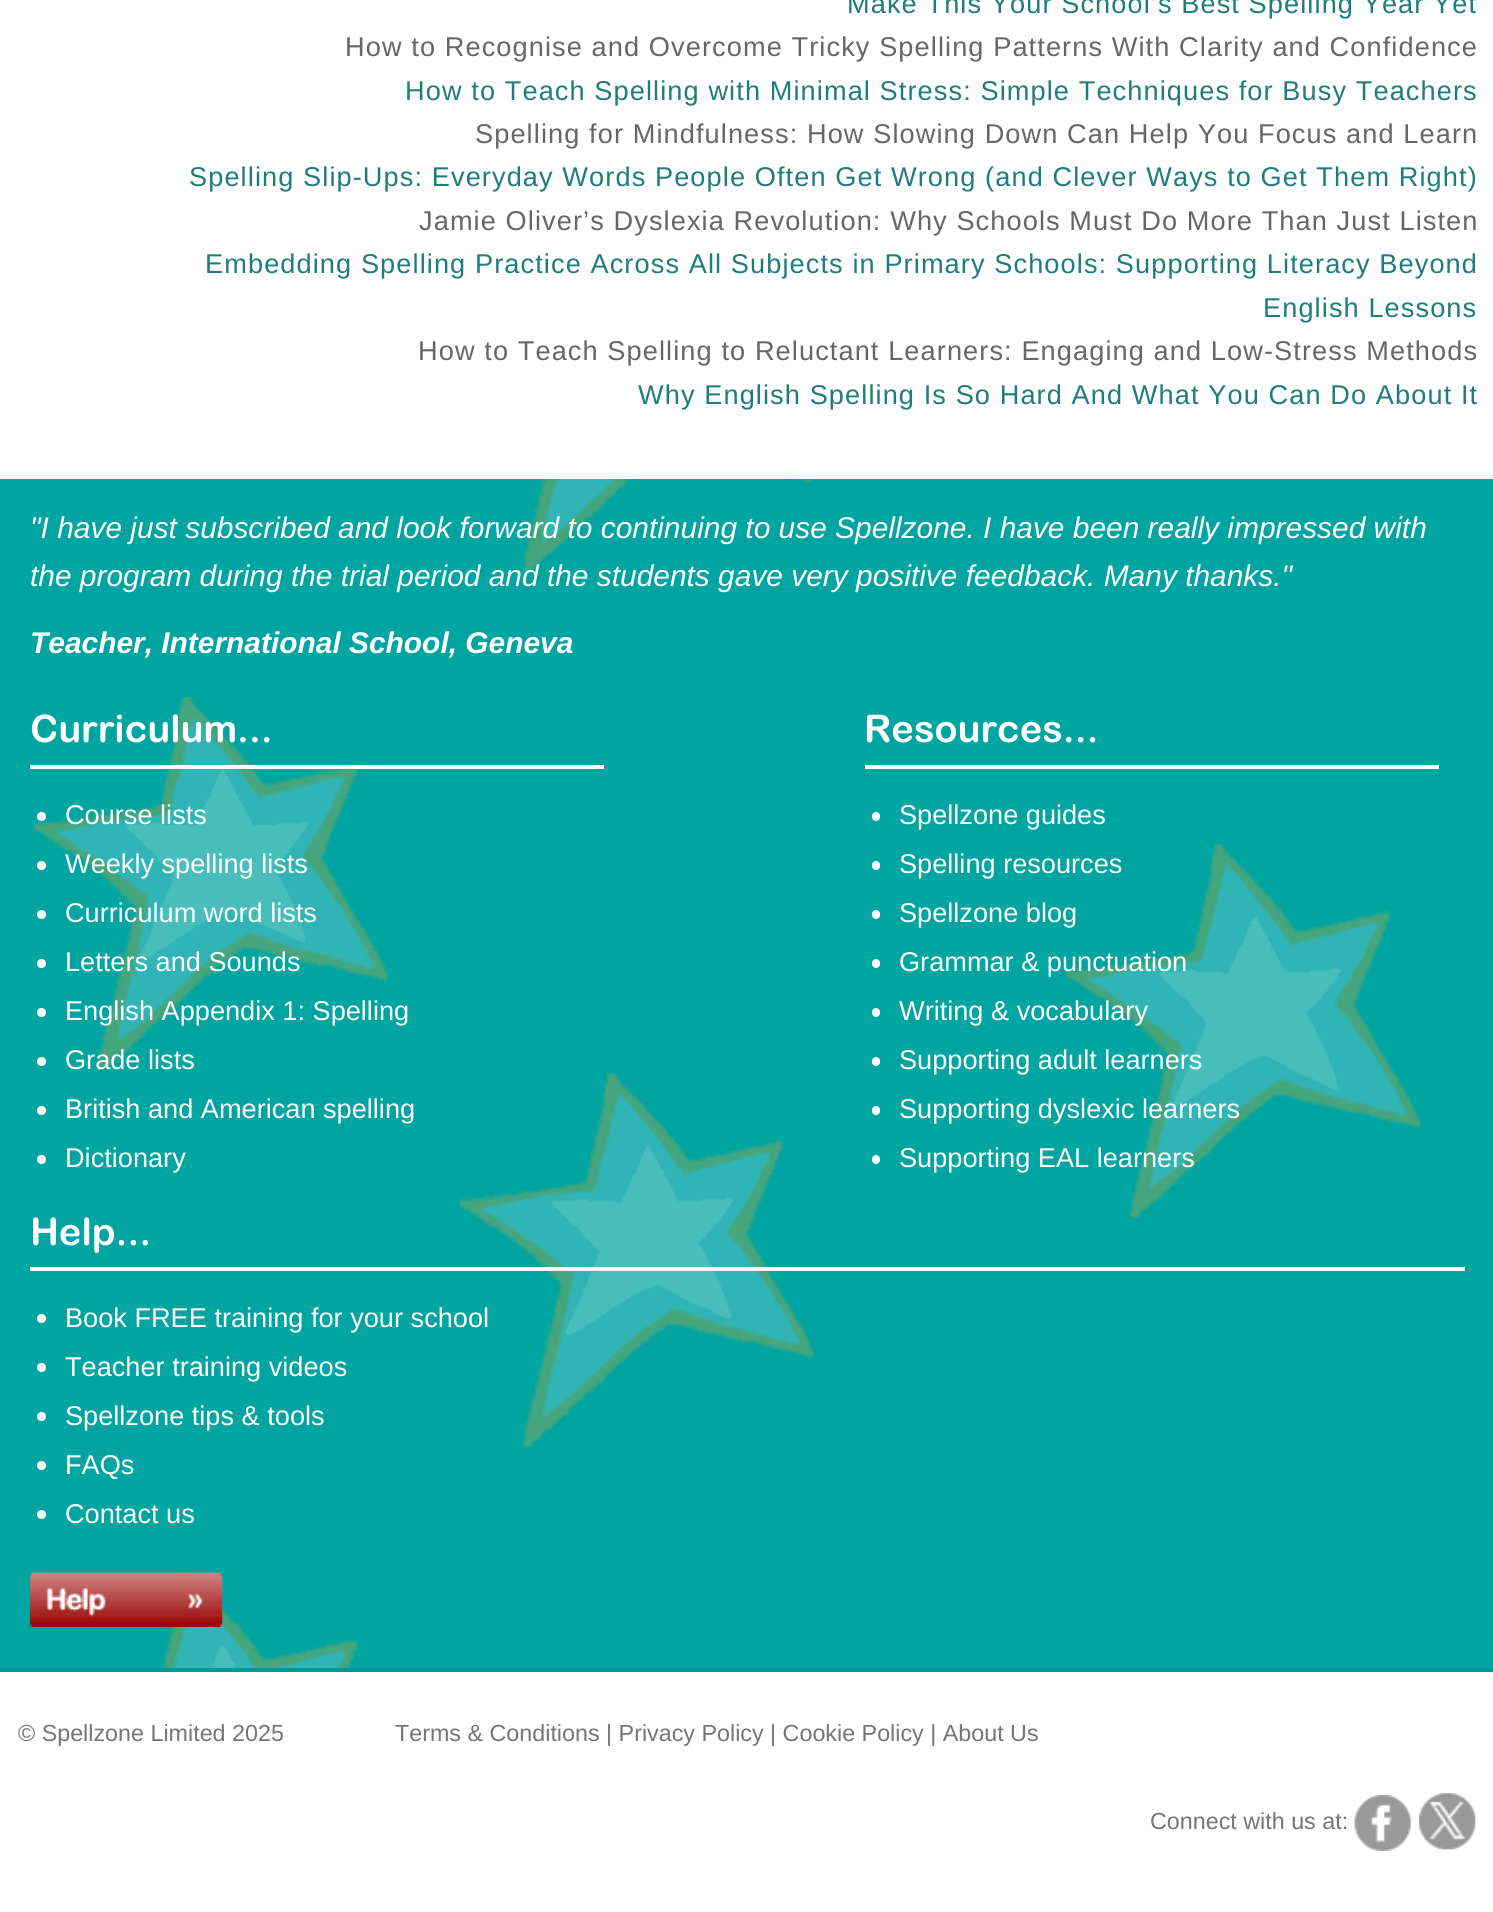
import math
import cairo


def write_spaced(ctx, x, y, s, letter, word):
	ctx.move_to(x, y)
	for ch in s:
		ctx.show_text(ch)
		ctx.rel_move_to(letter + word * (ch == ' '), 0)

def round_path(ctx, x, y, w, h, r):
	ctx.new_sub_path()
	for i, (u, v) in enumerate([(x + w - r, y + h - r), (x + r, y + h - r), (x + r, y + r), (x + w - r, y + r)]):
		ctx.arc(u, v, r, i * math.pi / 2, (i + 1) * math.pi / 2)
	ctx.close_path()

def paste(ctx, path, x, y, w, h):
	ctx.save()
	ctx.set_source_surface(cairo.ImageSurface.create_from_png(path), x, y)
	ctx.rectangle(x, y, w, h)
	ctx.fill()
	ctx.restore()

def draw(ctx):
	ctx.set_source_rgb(1, 1, 1)
	ctx.paint()
	ctx.select_font_face('Liberation Sans')
	ctx.set_font_size(27.15)
	ctx.set_source_rgb(0.122, 0.486, 0.486)
	write_spaced(ctx, 847, 13, 'Make This Your School’s Best Spelling Year Yet', 1.1, 0)
	ctx.set_source_rgb(0.4, 0.4, 0.4)
	write_spaced(ctx, 345, 56, 'How to Recognise and Overcome Tricky Spelling Patterns With Clarity and Confidence', 1.1, 0)
	ctx.set_source_rgb(0.122, 0.486, 0.486)
	write_spaced(ctx, 405, 100, 'How to Teach Spelling with Minimal Stress: Simple Techniques for Busy Teachers', 1.1, 0)
	ctx.set_source_rgb(0.4, 0.4, 0.4)
	write_spaced(ctx, 475, 143, 'Spelling for Mindfulness: How Slowing Down Can Help You Focus and Learn', 1.1, 0)
	ctx.set_source_rgb(0.122, 0.486, 0.486)
	write_spaced(ctx, 189, 186, 'Spelling Slip-Ups: Everyday Words People Often Get Wrong (and Clever Ways to Get Them Right)', 1.1, 0)
	ctx.set_source_rgb(0.4, 0.4, 0.4)
	write_spaced(ctx, 419, 230, 'Jamie Oliver’s Dyslexia Revolution: Why Schools Must Do More Than Just Listen', 1.1, 0)
	ctx.set_source_rgb(0.122, 0.486, 0.486)
	write_spaced(ctx, 205, 273, 'Embedding Spelling Practice Across All Subjects in Primary Schools: Supporting Literacy Beyond', 1.1, 0)
	write_spaced(ctx, 1263, 317, 'English Lessons', 1.1, 0)
	ctx.set_source_rgb(0.4, 0.4, 0.4)
	write_spaced(ctx, 418, 360, 'How to Teach Spelling to Reluctant Learners: Engaging and Low-Stress Methods', 1.1, 0)
	ctx.set_source_rgb(0.122, 0.486, 0.486)
	write_spaced(ctx, 638, 404, 'Why English Spelling Is So Hard And What You Can Do About It', 1.1, 0)
	paste(ctx, 'media/1.png', 0, 479, 1493, 1189)
	ctx.set_source_rgb(0, 0.6, 0.6)
	ctx.rectangle(0, 1668, 1493, 4)
	ctx.fill()
	ctx.select_font_face('Liberation Sans', cairo.FONT_SLANT_ITALIC)
	ctx.set_font_size(29.9)
	ctx.set_source_rgb(1, 1, 1)
	ctx.move_to(30, 538)
	ctx.show_text('"I have just subscribed and look forward to continuing to use Spellzone. I have been really impressed with')
	ctx.move_to(30, 586)
	ctx.show_text('the program during the trial period and the students gave very positive feedback. Many thanks."')
	ctx.select_font_face('Liberation Sans', cairo.FONT_SLANT_ITALIC, cairo.FONT_WEIGHT_BOLD)
	ctx.move_to(30, 653)
	ctx.show_text('Teacher, International School, Geneva')
	ctx.select_font_face('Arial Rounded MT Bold', cairo.FONT_SLANT_NORMAL, cairo.FONT_WEIGHT_BOLD)
	ctx.set_font_size(38)
	ctx.move_to(30, 742)
	ctx.show_text('Curriculum...')
	ctx.rectangle(30, 765, 574, 4)
	ctx.fill()
	ctx.arc(41.5, 816.5, 4.5, 0, 2 * math.pi)
	ctx.fill()
	ctx.select_font_face('Liberation Sans')
	ctx.set_font_size(27.15)
	ctx.move_to(65, 824)
	ctx.show_text('Course lists')
	ctx.new_path()
	ctx.arc(41.5, 865.5, 4.5, 0, 2 * math.pi)
	ctx.fill()
	ctx.move_to(65, 873)
	ctx.show_text('Weekly spelling lists')
	ctx.new_path()
	ctx.arc(41.5, 914.5, 4.5, 0, 2 * math.pi)
	ctx.fill()
	ctx.move_to(65, 922)
	ctx.show_text('Curriculum word lists')
	ctx.new_path()
	ctx.arc(41.5, 963.5, 4.5, 0, 2 * math.pi)
	ctx.fill()
	ctx.move_to(65, 971)
	ctx.show_text('Letters and Sounds')
	ctx.new_path()
	ctx.arc(41.5, 1012.5, 4.5, 0, 2 * math.pi)
	ctx.fill()
	ctx.move_to(65, 1020)
	ctx.show_text('English Appendix 1: Spelling')
	ctx.new_path()
	ctx.arc(41.5, 1061.5, 4.5, 0, 2 * math.pi)
	ctx.fill()
	ctx.move_to(65, 1069)
	ctx.show_text('Grade lists')
	ctx.new_path()
	ctx.arc(41.5, 1110.5, 4.5, 0, 2 * math.pi)
	ctx.fill()
	ctx.move_to(65, 1118)
	ctx.show_text('British and American spelling')
	ctx.new_path()
	ctx.arc(41.5, 1159.5, 4.5, 0, 2 * math.pi)
	ctx.fill()
	ctx.move_to(65, 1167)
	ctx.show_text('Dictionary')
	ctx.select_font_face('Arial Rounded MT Bold', cairo.FONT_SLANT_NORMAL, cairo.FONT_WEIGHT_BOLD)
	ctx.set_font_size(38)
	ctx.move_to(864, 742)
	ctx.show_text('Resources...')
	ctx.rectangle(865, 765, 574, 4)
	ctx.fill()
	round_path(ctx, 872, 812, 8, 9, 4)
	ctx.fill()
	ctx.select_font_face('Liberation Sans')
	ctx.set_font_size(27.15)
	ctx.move_to(899, 824)
	ctx.show_text('Spellzone guides')
	round_path(ctx, 872, 861, 8, 9, 4)
	ctx.fill()
	ctx.move_to(899, 873)
	ctx.show_text('Spelling resources')
	round_path(ctx, 872, 910, 8, 9, 4)
	ctx.fill()
	ctx.move_to(899, 922)
	ctx.show_text('Spellzone blog')
	round_path(ctx, 872, 959, 8, 9, 4)
	ctx.fill()
	ctx.move_to(899, 971)
	ctx.show_text('Grammar & punctuation')
	round_path(ctx, 872, 1008, 8, 9, 4)
	ctx.fill()
	ctx.move_to(899, 1020)
	ctx.show_text('Writing & vocabulary')
	round_path(ctx, 872, 1057, 8, 9, 4)
	ctx.fill()
	ctx.move_to(899, 1069)
	ctx.show_text('Supporting adult learners')
	round_path(ctx, 872, 1106, 8, 9, 4)
	ctx.fill()
	ctx.move_to(899, 1118)
	ctx.show_text('Supporting dyslexic learners')
	round_path(ctx, 872, 1155, 8, 9, 4)
	ctx.fill()
	ctx.move_to(899, 1167)
	ctx.show_text('Supporting EAL learners')
	ctx.select_font_face('Arial Rounded MT Bold', cairo.FONT_SLANT_NORMAL, cairo.FONT_WEIGHT_BOLD)
	ctx.set_font_size(38)
	ctx.move_to(30, 1245)
	ctx.show_text('Help...')
	ctx.rectangle(30, 1267, 1435, 4)
	ctx.fill()
	ctx.arc(41.5, 1318.5, 4.5, 0, 2 * math.pi)
	ctx.fill()
	ctx.select_font_face('Liberation Sans')
	ctx.set_font_size(27.15)
	ctx.move_to(65, 1327)
	ctx.show_text('Book FREE training for your school')
	ctx.new_path()
	ctx.arc(41.5, 1367.5, 4.5, 0, 2 * math.pi)
	ctx.fill()
	ctx.move_to(65, 1376)
	ctx.show_text('Teacher training videos')
	ctx.new_path()
	ctx.arc(41.5, 1416.5, 4.5, 0, 2 * math.pi)
	ctx.fill()
	ctx.move_to(65, 1425)
	ctx.show_text('Spellzone tips & tools')
	ctx.new_path()
	ctx.arc(41.5, 1465.5, 4.5, 0, 2 * math.pi)
	ctx.fill()
	ctx.move_to(65, 1474)
	ctx.show_text('FAQs')
	ctx.new_path()
	ctx.arc(41.5, 1514.5, 4.5, 0, 2 * math.pi)
	ctx.fill()
	ctx.move_to(65, 1523)
	ctx.show_text('Contact us')
	paste(ctx, 'media/2.png', 29, 1572, 194, 55)
	ctx.set_font_size(23.3)
	ctx.set_source_rgb(0.459, 0.459, 0.459)
	for x, y, s in [
		(18, 1741, '© Spellzone Limited 2025'),
		(395, 1741, 'Terms & Conditions | Privacy Policy | Cookie Policy | About Us'),
		(1150, 1829, 'Connect with us at:'),
	]:
		ctx.move_to(x, y)
		ctx.show_text(s)
	paste(ctx, 'media/3.png', 1354, 1795, 58, 56)
	paste(ctx, 'media/4.png', 1419, 1793, 57, 57)


surface = cairo.ImageSurface(cairo.FORMAT_RGB24, 1493, 1912)
ctx = cairo.Context(surface)
options = cairo.FontOptions()
options.set_hint_metrics(cairo.HINT_METRICS_OFF)
options.set_hint_style(cairo.HINT_STYLE_NONE)
ctx.set_font_options(options)
ctx.set_miter_limit(4)
draw(ctx)
surface.write_to_png('image.png')
